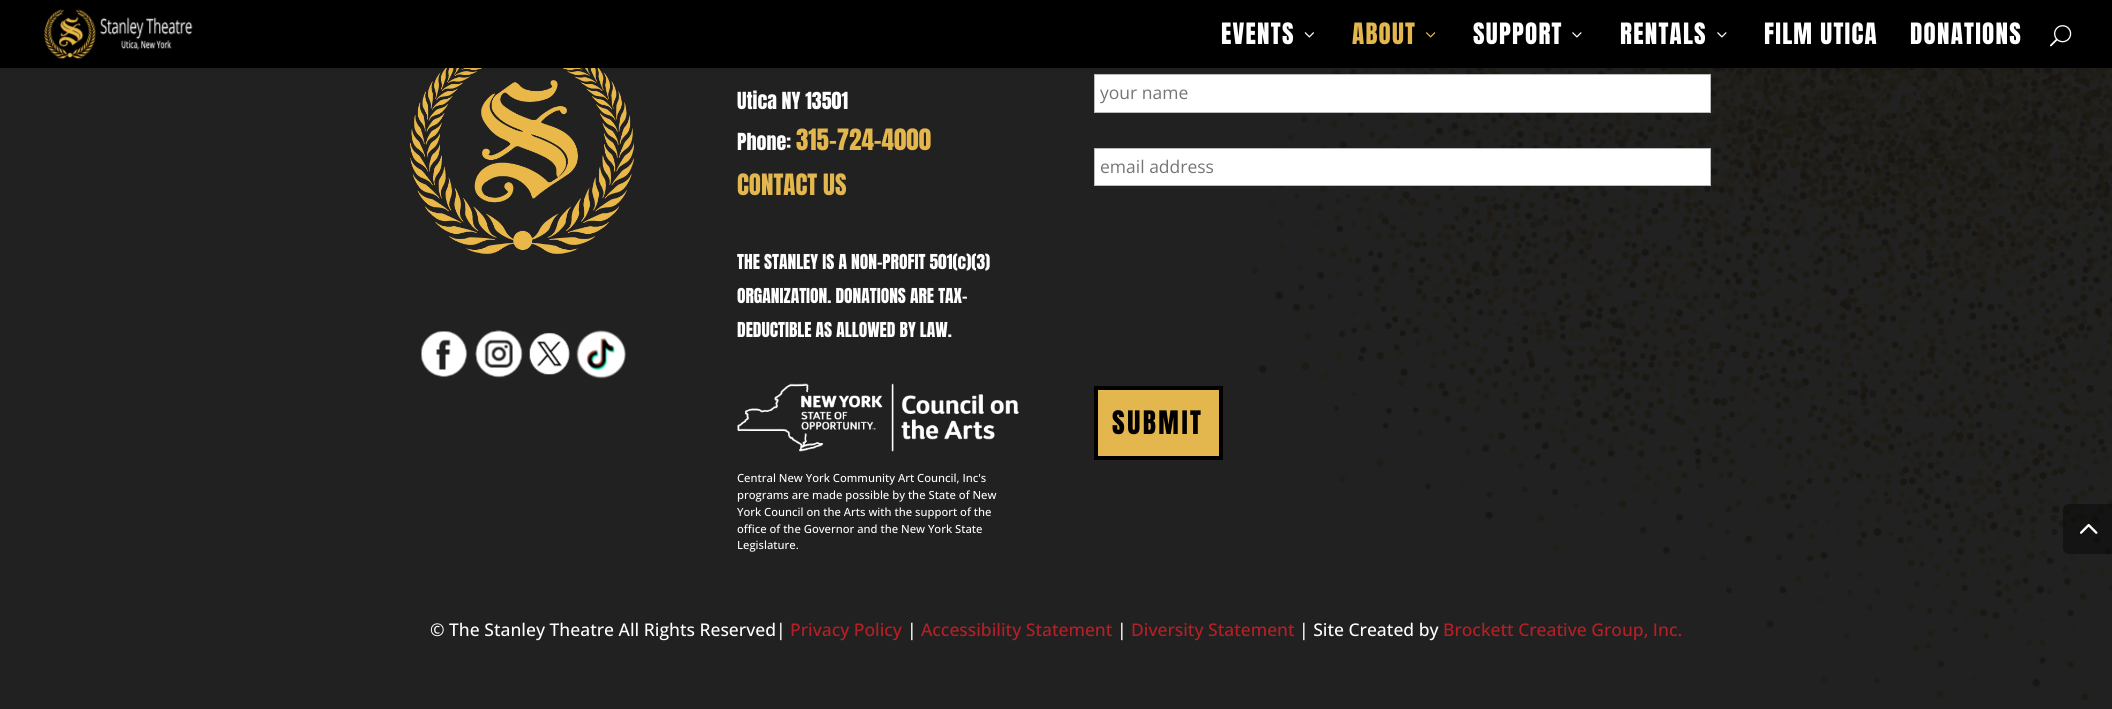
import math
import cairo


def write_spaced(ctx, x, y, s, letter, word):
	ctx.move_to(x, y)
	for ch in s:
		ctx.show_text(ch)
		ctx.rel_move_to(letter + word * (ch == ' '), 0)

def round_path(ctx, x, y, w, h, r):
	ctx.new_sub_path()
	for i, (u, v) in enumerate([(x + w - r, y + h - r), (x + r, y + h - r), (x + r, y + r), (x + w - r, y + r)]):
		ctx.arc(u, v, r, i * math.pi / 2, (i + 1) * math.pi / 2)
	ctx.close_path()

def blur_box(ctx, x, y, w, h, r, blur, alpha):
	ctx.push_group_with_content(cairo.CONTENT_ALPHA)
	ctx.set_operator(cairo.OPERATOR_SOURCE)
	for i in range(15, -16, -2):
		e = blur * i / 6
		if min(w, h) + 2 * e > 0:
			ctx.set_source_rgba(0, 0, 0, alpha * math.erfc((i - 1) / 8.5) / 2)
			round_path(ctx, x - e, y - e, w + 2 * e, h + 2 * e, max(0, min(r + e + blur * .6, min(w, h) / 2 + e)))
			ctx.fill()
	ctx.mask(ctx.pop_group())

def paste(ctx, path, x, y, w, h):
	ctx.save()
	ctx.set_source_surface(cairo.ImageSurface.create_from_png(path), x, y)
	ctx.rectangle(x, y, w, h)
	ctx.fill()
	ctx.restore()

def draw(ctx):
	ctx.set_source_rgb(0.129, 0.129, 0.129)
	ctx.paint()
	paste(ctx, 'media/1.png', 1228, 68, 884, 636)
	paste(ctx, 'media/7.png', 410, 68, 224, 186)
	ctx.set_source_rgb(1, 1, 1)
	ctx.rectangle(1094.5, 74.5, 616, 38)
	ctx.fill_preserve()
	ctx.set_source_rgb(0.733, 0.733, 0.733)
	ctx.set_line_width(1)
	ctx.stroke()
	ctx.set_source_rgb(0, 0, 0)
	blur_box(ctx, 0, 0, 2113, 68, 0, 4.5, 0.1)
	ctx.set_source_rgb(0, 0, 0)
	ctx.rectangle(0, 0, 2112, 68)
	ctx.fill()
	paste(ctx, 'media/2.png', 44, 9, 149, 50)
	ctx.select_font_face('Anton')
	ctx.set_font_size(25)
	ctx.set_source_rgb(1, 1, 1)
	write_spaced(ctx, 1221, 44, 'EVENTS', 1.25, 0)
	paste(ctx, 'media/3.png', 1304, 32, 10, 6)
	ctx.set_source_rgb(0.894, 0.714, 0.306)
	write_spaced(ctx, 1352, 44, 'ABOUT', 1.25, 0)
	paste(ctx, 'media/4.png', 1426, 32, 10, 6)
	ctx.set_source_rgb(1, 1, 1)
	write_spaced(ctx, 1473, 44, 'SUPPORT', 1.25, 0)
	paste(ctx, 'media/5.png', 1572, 32, 10, 6)
	write_spaced(ctx, 1620, 44, 'RENTALS', 1.25, 0)
	paste(ctx, 'media/5.png', 1717, 32, 10, 6)
	write_spaced(ctx, 1764, 44, 'FILM UTICA', 1.25, 0)
	write_spaced(ctx, 1910, 44, 'DONATIONS', 1.25, 0)
	paste(ctx, 'media/6.png', 2050, 25, 22, 22)
	paste(ctx, 'media/8.png', 421, 331, 47, 46)
	paste(ctx, 'media/9.png', 475, 330, 48, 48)
	paste(ctx, 'media/10.png', 529, 332, 41, 43)
	paste(ctx, 'media/11.png', 576, 330, 50, 49)
	ctx.set_font_size(20)
	ctx.move_to(737, 109)
	ctx.show_text('Utica NY 13501')
	ctx.move_to(737, 150)
	ctx.show_text('Phone:')
	ctx.set_font_size(25)
	ctx.set_source_rgb(0.894, 0.714, 0.306)
	ctx.move_to(796, 150)
	ctx.show_text('315-724-4000')
	ctx.move_to(737, 195)
	ctx.show_text('CONTACT US')
	ctx.set_font_size(17.5)
	ctx.set_source_rgb(1, 1, 1)
	for x, y, s in [
		(737, 269, 'THE STANLEY IS A NON-PROFIT 501(c)(3)'),
		(737, 303, 'ORGANIZATION. DONATIONS ARE TAX-'),
		(737, 337, 'DEDUCTIBLE AS ALLOWED BY LAW.'),
	]:
		ctx.move_to(x, y)
		ctx.show_text(s)
	paste(ctx, 'media/12.png', 737, 383, 282, 69)
	ctx.select_font_face('Open Sans Medium')
	ctx.set_font_size(11.25)
	for x, y, s in [
		(737, 482, 'Central New York Community Art Council, Inc\'s'),
		(737, 499, 'programs are made possible by the State of New'),
		(737, 516, 'York Council on the Arts with the support of the'),
		(737, 533, 'office of the Governor and the New York State'),
		(737, 549, 'Legislature.'),
	]:
		ctx.move_to(x, y)
		ctx.show_text(s)
	ctx.save()
	ctx.rectangle(1100, 81, 605, 24)
	ctx.clip()
	ctx.select_font_face('Open Sans')
	ctx.set_font_size(17.5)
	ctx.set_source_rgb(0.459, 0.459, 0.459)
	ctx.move_to(1100, 99)
	ctx.show_text('your name')
	ctx.restore()
	ctx.rectangle(1094.5, 148.5, 616, 37)
	ctx.fill_preserve()
	ctx.set_source_rgb(0.733, 0.733, 0.733)
	ctx.stroke()
	ctx.select_font_face('Open Sans')
	ctx.set_font_size(17.5)
	ctx.set_source_rgb(0.459, 0.459, 0.459)
	ctx.move_to(1100, 173)
	ctx.show_text('email address')
	ctx.set_source_rgb(0.894, 0.714, 0.306)
	ctx.rectangle(1096, 388, 125, 70)
	ctx.fill_preserve()
	ctx.set_source_rgb(0, 0, 0)
	ctx.set_line_width(4)
	ctx.stroke()
	ctx.select_font_face('Anton')
	ctx.set_font_size(27.5)
	write_spaced(ctx, 1112, 434, 'SUBMIT', 2.5, 0)
	ctx.select_font_face('Open Sans Medium')
	ctx.set_font_size(17.5)
	ctx.set_source_rgb(1, 1, 1)
	ctx.move_to(430, 636)
	ctx.show_text('© The Stanley Theatre All Rights Reserved|')
	ctx.set_source_rgb(0.718, 0.122, 0.149)
	ctx.move_to(790, 636)
	ctx.show_text('Privacy Policy')
	ctx.set_source_rgb(1, 1, 1)
	ctx.move_to(907, 636)
	ctx.show_text('|')
	ctx.set_source_rgb(0.718, 0.122, 0.149)
	ctx.move_to(921, 636)
	ctx.show_text('Accessibility Statement')
	ctx.set_source_rgb(1, 1, 1)
	ctx.move_to(1117, 636)
	ctx.show_text('|')
	ctx.set_source_rgb(0.718, 0.122, 0.149)
	ctx.move_to(1131, 636)
	ctx.show_text('Diversity Statement')
	ctx.set_source_rgb(1, 1, 1)
	ctx.move_to(1299, 636)
	ctx.show_text('| Site Created by')
	ctx.set_source_rgb(0.718, 0.122, 0.149)
	ctx.move_to(1443, 636)
	ctx.show_text('Brockett Creative Group, Inc.')
	ctx.set_source_rgba(0, 0, 0, 0.4)
	ctx.new_path()
	ctx.move_to(2069, 504)
	ctx.line_to(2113, 504)
	ctx.line_to(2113, 554)
	ctx.line_to(2069, 554)
	ctx.curve_to(2065.5, 554, 2063, 551.5, 2063, 548)
	ctx.line_to(2063, 510)
	ctx.curve_to(2063, 506.5, 2065.5, 504, 2069, 504)
	ctx.close_path()
	ctx.fill()
	paste(ctx, 'media/13.png', 2079, 523, 19, 11)


surface = cairo.ImageSurface(cairo.FORMAT_RGB24, 2112, 709)
ctx = cairo.Context(surface)
options = cairo.FontOptions()
options.set_hint_metrics(cairo.HINT_METRICS_OFF)
options.set_hint_style(cairo.HINT_STYLE_NONE)
ctx.set_font_options(options)
ctx.set_miter_limit(4)
draw(ctx)
surface.write_to_png('image.png')
